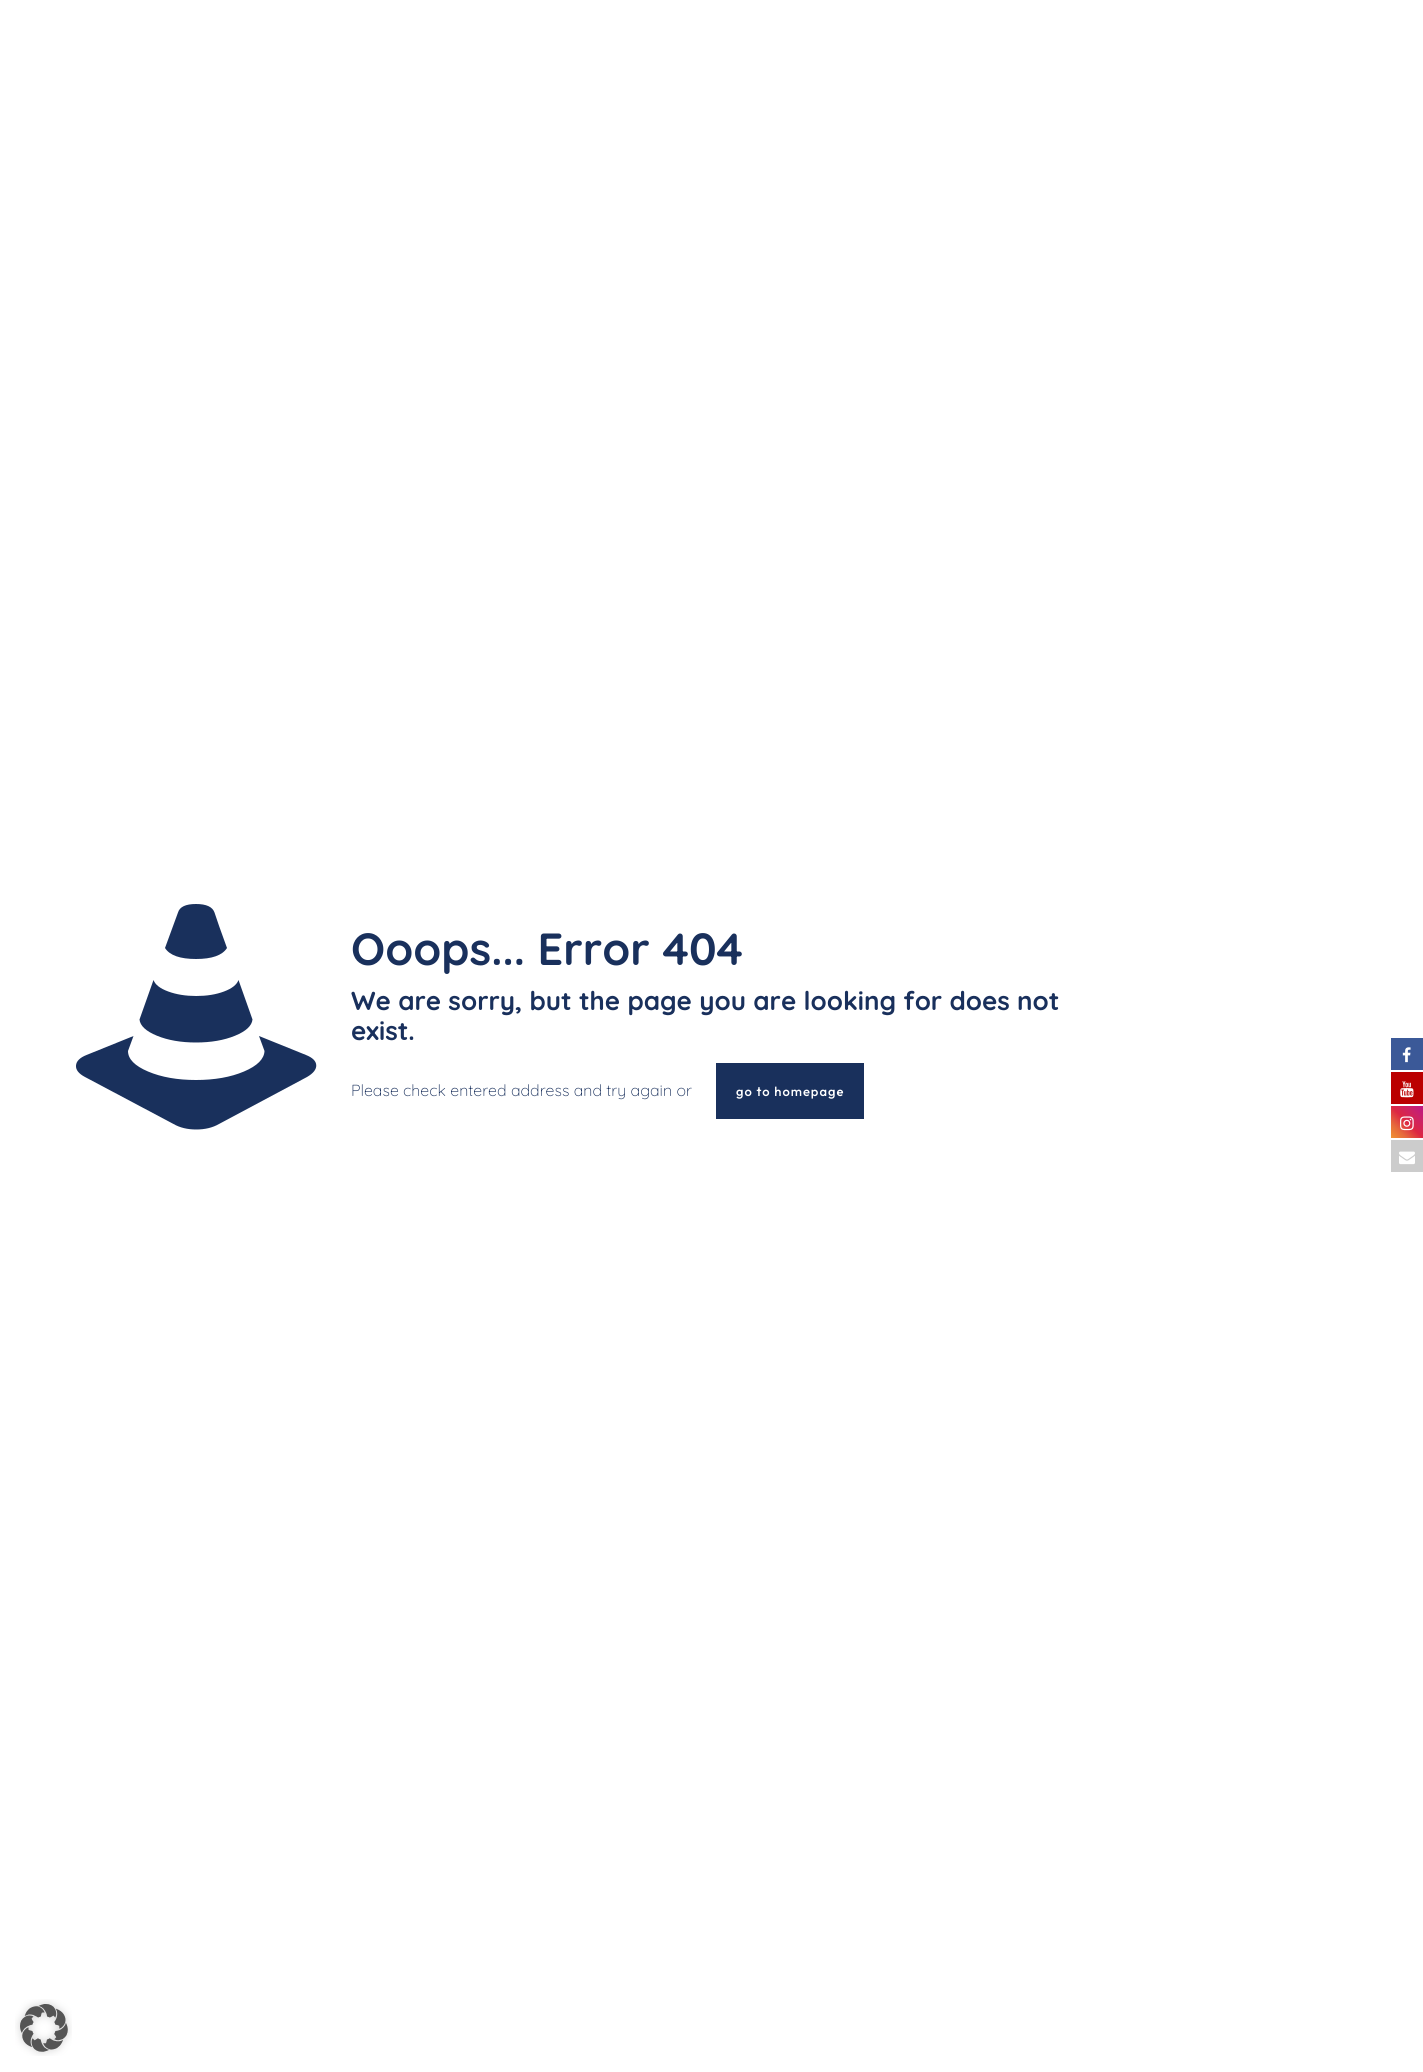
import math
import cairo


def write_spaced(ctx, x, y, s, letter, word):
	ctx.move_to(x, y)
	for ch in s:
		ctx.show_text(ch)
		ctx.rel_move_to(letter + word * (ch == ' '), 0)

def paste(ctx, path, x, y, w, h):
	ctx.save()
	ctx.set_source_surface(cairo.ImageSurface.create_from_png(path), x, y)
	ctx.rectangle(x, y, w, h)
	ctx.fill()
	ctx.restore()

def draw(ctx):
	ctx.set_source_rgb(1, 1, 1)
	ctx.paint()
	paste(ctx, 'media/1.png', 76, 904, 241, 226)
	ctx.select_font_face('Quicksand Light')
	ctx.set_font_size(45)
	ctx.set_source_rgb(0.098, 0.188, 0.361)
	ctx.move_to(351, 965)
	ctx.show_text('Ooops... Error 404')
	ctx.set_font_size(26)
	ctx.move_to(351, 1010)
	ctx.show_text('We are sorry, but the page you are looking for does not')
	ctx.move_to(351, 1040)
	ctx.show_text('exist.')
	ctx.select_font_face('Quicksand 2 Light')
	ctx.set_font_size(16)
	ctx.move_to(351, 1096)
	ctx.show_text('Please check entered address and try again or')
	ctx.rectangle(716, 1063, 148, 56)
	ctx.fill()
	ctx.select_font_face('Outfit Thin')
	ctx.set_font_size(13)
	ctx.set_source_rgb(1, 1, 1)
	write_spaced(ctx, 736, 1096, 'go to homepage', 1, 0)
	ctx.set_source_rgb(0.231, 0.349, 0.596)
	ctx.rectangle(1391, 1038, 32, 32)
	ctx.fill()
	paste(ctx, 'media/2.png', 1402, 1047, 9, 16)
	ctx.set_source_rgb(0.733, 0, 0)
	ctx.rectangle(1391, 1072, 32, 32)
	ctx.fill()
	paste(ctx, 'media/3.png', 1400, 1081, 14, 17)
	gradient = cairo.LinearGradient(1391, 1138, 1423, 1106)
	gradient.add_color_stop_rgba(0, 0.941, 0.58, 0.2, 1)
	gradient.add_color_stop_rgba(0.25, 0.902, 0.408, 0.235, 1)
	gradient.add_color_stop_rgba(0.5, 0.863, 0.153, 0.263, 1)
	gradient.add_color_stop_rgba(0.75, 0.8, 0.137, 0.4, 1)
	gradient.add_color_stop_rgba(1, 0.737, 0.094, 0.533, 1)
	ctx.set_source(gradient)
	ctx.rectangle(1391, 1106, 32, 32)
	ctx.fill()
	paste(ctx, 'media/4.png', 1400, 1116, 14, 15)
	ctx.set_source_rgb(0.8, 0.8, 0.8)
	ctx.rectangle(1391, 1140, 32, 32)
	ctx.fill()
	paste(ctx, 'media/5.png', 1399, 1151, 16, 14)
	paste(ctx, 'media/6.png', 15, 1999, 57, 57)


surface = cairo.ImageSurface(cairo.FORMAT_RGB24, 1423, 2072)
ctx = cairo.Context(surface)
options = cairo.FontOptions()
options.set_hint_metrics(cairo.HINT_METRICS_OFF)
options.set_hint_style(cairo.HINT_STYLE_NONE)
ctx.set_font_options(options)
ctx.set_miter_limit(4)
draw(ctx)
surface.write_to_png('image.png')
